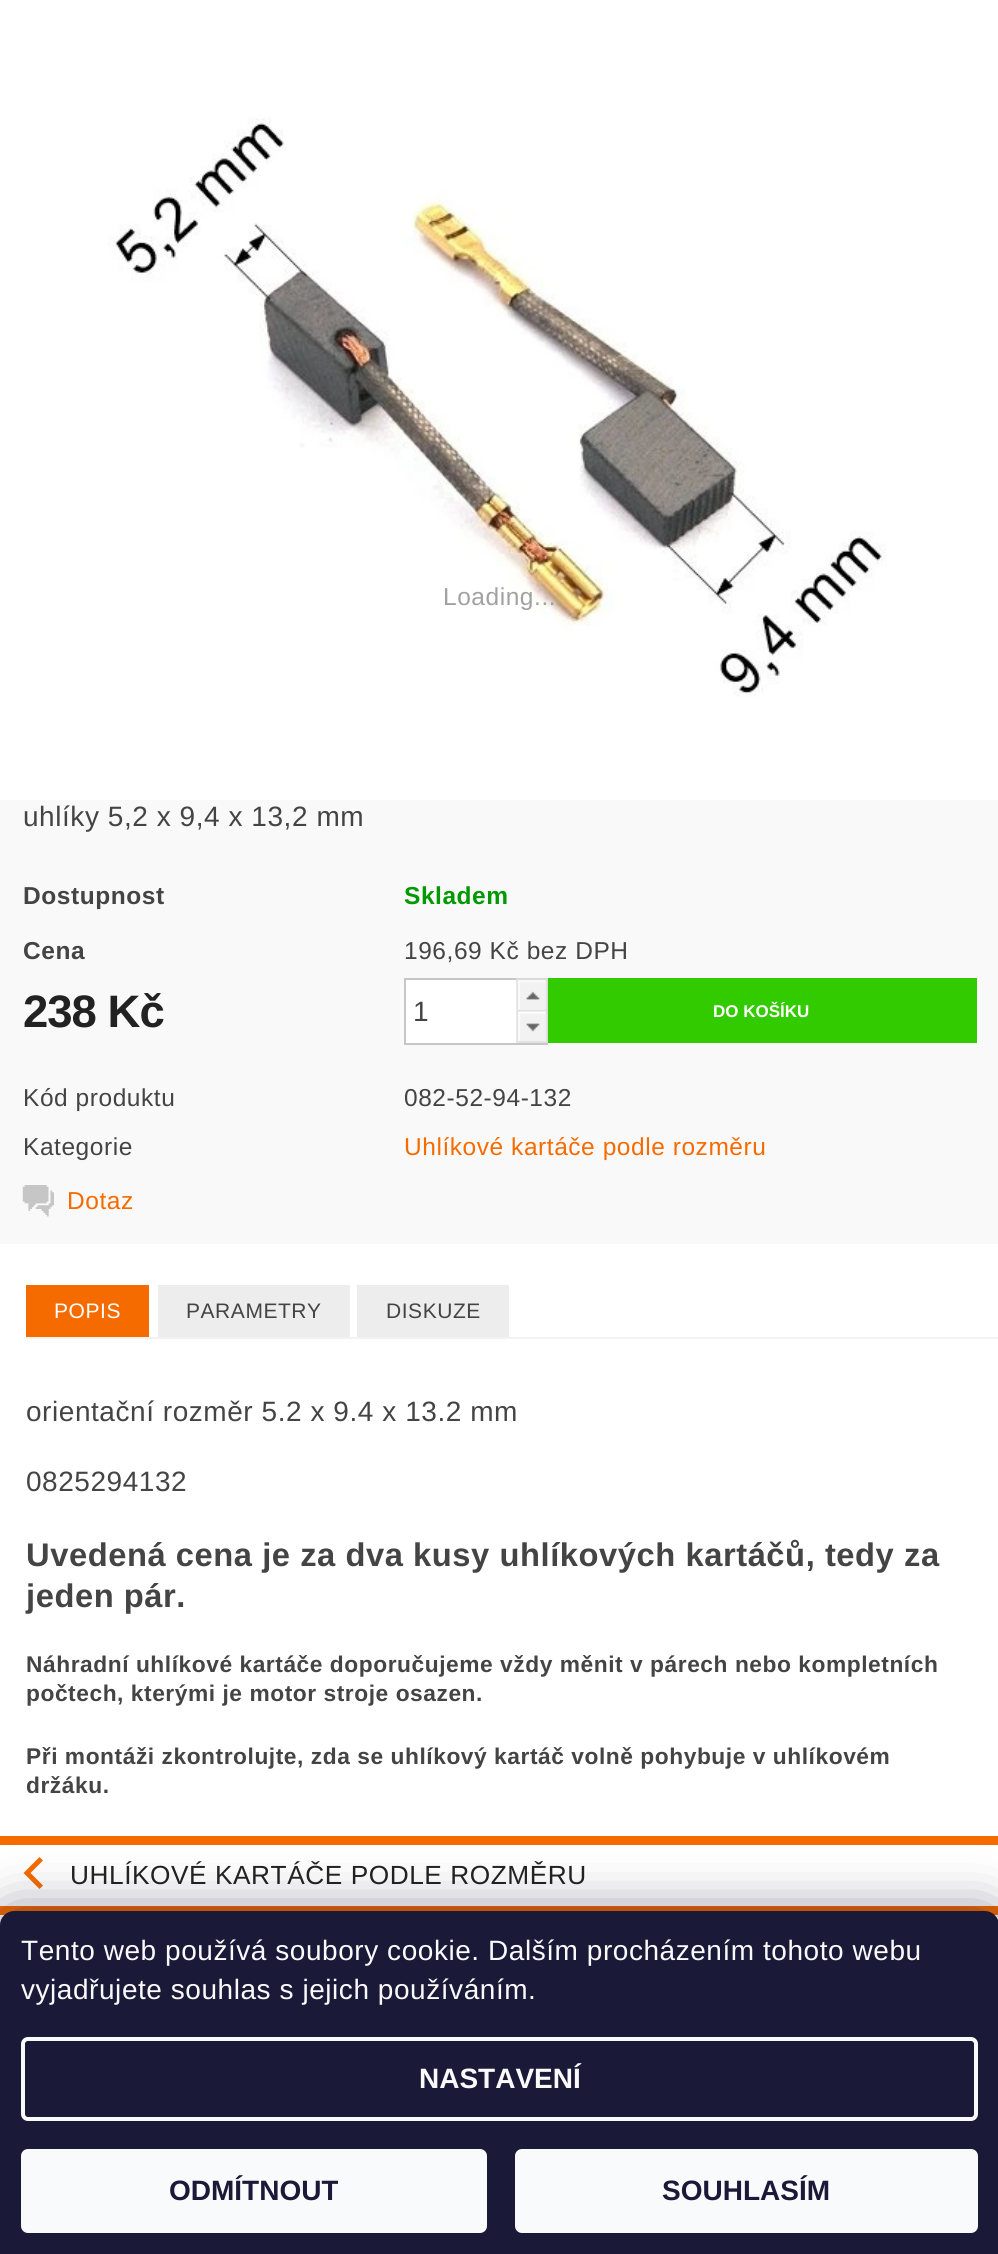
import math
import cairo


def write_spaced(ctx, x, y, s, letter, word):
	ctx.move_to(x, y)
	for ch in s:
		ctx.show_text(ch)
		ctx.rel_move_to(letter + word * (ch == ' '), 0)

def round_path(ctx, x, y, w, h, r):
	ctx.new_sub_path()
	for i, (u, v) in enumerate([(x + w - r, y + h - r), (x + r, y + h - r), (x + r, y + r), (x + w - r, y + r)]):
		ctx.arc(u, v, r, i * math.pi / 2, (i + 1) * math.pi / 2)
	ctx.close_path()

def blur_box(ctx, x, y, w, h, r, blur, alpha):
	ctx.push_group_with_content(cairo.CONTENT_ALPHA)
	ctx.set_operator(cairo.OPERATOR_SOURCE)
	for i in range(15, -16, -2):
		e = blur * i / 6
		if min(w, h) + 2 * e > 0:
			ctx.set_source_rgba(0, 0, 0, alpha * math.erfc((i - 1) / 8.5) / 2)
			round_path(ctx, x - e, y - e, w + 2 * e, h + 2 * e, max(0, min(r + e + blur * .6, min(w, h) / 2 + e)))
			ctx.fill()
	ctx.mask(ctx.pop_group())

def paste(ctx, path, x, y, w, h):
	ctx.save()
	ctx.set_source_surface(cairo.ImageSurface.create_from_png(path), x, y)
	ctx.rectangle(x, y, w, h)
	ctx.fill()
	ctx.restore()

def draw(ctx):
	ctx.set_source_rgb(1, 1, 1)
	ctx.paint()
	paste(ctx, 'media/1.png', 108, 117, 778, 580)
	ctx.select_font_face('Liberation Sans')
	ctx.set_font_size(24.5)
	ctx.set_source_rgb(0.631, 0.631, 0.631)
	write_spaced(ctx, 443, 605, 'Loading...', 0.55, 0)
	ctx.set_source_rgb(0.973, 0.973, 0.973)
	ctx.rectangle(0, 800, 998, 444)
	ctx.fill()
	ctx.set_font_size(28)
	ctx.set_source_rgb(0.267, 0.267, 0.267)
	write_spaced(ctx, 23, 826, 'uhlíky 5,2 x 9,4 x 13,2 mm', 0.55, 0)
	ctx.select_font_face('Liberation Sans', cairo.FONT_SLANT_NORMAL, cairo.FONT_WEIGHT_BOLD)
	ctx.set_font_size(24.5)
	write_spaced(ctx, 23, 904, 'Dostupnost', 0.55, 0)
	ctx.set_source_rgb(0, 0.6, 0.004)
	write_spaced(ctx, 404, 904, 'Skladem', 0.55, 0)
	ctx.set_source_rgb(0.267, 0.267, 0.267)
	write_spaced(ctx, 23, 959, 'Cena', 0.55, 0)
	ctx.select_font_face('Liberation Sans')
	write_spaced(ctx, 404, 959, '196,69 Kč bez DPH', 0.55, 0)
	ctx.select_font_face('Liberation Sans', cairo.FONT_SLANT_NORMAL, cairo.FONT_WEIGHT_BOLD)
	ctx.set_font_size(45.5)
	ctx.set_source_rgb(0.133, 0.133, 0.133)
	write_spaced(ctx, 23, 1027, '238 Kč', -1, 0)
	ctx.set_source_rgb(1, 1, 1)
	ctx.rectangle(405, 979, 142, 65)
	ctx.fill_preserve()
	ctx.set_source_rgb(0.776, 0.776, 0.776)
	ctx.stroke()
	ctx.select_font_face('Liberation Sans')
	ctx.set_font_size(28)
	ctx.set_source_rgb(0.267, 0.267, 0.267)
	ctx.move_to(413, 1021)
	ctx.show_text('1')
	paste(ctx, 'media/2.png', 516, 978, 32, 32)
	paste(ctx, 'media/3.png', 516, 1009, 32, 34)
	ctx.set_source_rgb(0.196, 0.796, 0)
	ctx.rectangle(548, 978, 429, 65)
	ctx.fill()
	ctx.select_font_face('Liberation Sans', cairo.FONT_SLANT_NORMAL, cairo.FONT_WEIGHT_BOLD)
	ctx.set_font_size(17)
	ctx.set_source_rgb(1, 1, 1)
	ctx.move_to(713, 1017)
	ctx.show_text('DO KOŠÍKU')
	ctx.select_font_face('Liberation Sans')
	ctx.set_font_size(24.5)
	ctx.set_source_rgb(0.267, 0.267, 0.267)
	for x, y, s in [
		(23, 1106, 'Kód produktu'),
		(404, 1106, '082-52-94-132'),
		(23, 1155, 'Kategorie'),
	]:
		write_spaced(ctx, x, y, s, 0.55, 0)
	ctx.set_source_rgb(0.961, 0.42, 0)
	write_spaced(ctx, 404, 1155, 'Uhlíkové kartáče podle rozměru', 0.55, 0)
	paste(ctx, 'media/4.png', 22, 1185, 32, 32)
	write_spaced(ctx, 67, 1209, 'Dotaz', 0.55, 0)
	ctx.set_source_rgb(0.949, 0.949, 0.949)
	ctx.rectangle(26, 1337, 972, 2)
	ctx.fill()
	ctx.set_source_rgb(0.961, 0.42, 0)
	ctx.rectangle(26, 1285, 123, 52)
	ctx.fill()
	ctx.set_font_size(21)
	ctx.set_source_rgb(1, 1, 1)
	write_spaced(ctx, 54, 1318, 'POPIS', 0.55, 0)
	ctx.set_source_rgb(0.929, 0.929, 0.929)
	ctx.rectangle(158, 1285, 192, 52)
	ctx.fill()
	ctx.set_source_rgb(0.267, 0.267, 0.267)
	write_spaced(ctx, 186, 1318, 'PARAMETRY', 0.55, 0)
	ctx.set_source_rgb(0.929, 0.929, 0.929)
	ctx.rectangle(357, 1285, 152, 52)
	ctx.fill()
	ctx.set_source_rgb(0.267, 0.267, 0.267)
	write_spaced(ctx, 386, 1318, 'DISKUZE', 0.55, 0)
	ctx.set_font_size(28)
	write_spaced(ctx, 26, 1421, 'orientační rozměr 5.2 x 9.4 x 13.2 mm', 0.55, 0)
	write_spaced(ctx, 26, 1491, '0825294132', 0.55, 0)
	ctx.select_font_face('Liberation Sans', cairo.FONT_SLANT_NORMAL, cairo.FONT_WEIGHT_BOLD)
	ctx.set_font_size(32.7)
	write_spaced(ctx, 26, 1566, 'Uvedená cena je za dva kusy uhlíkových kartáčů, tedy za', 0.55, 0)
	write_spaced(ctx, 26, 1607, 'jeden pár.', 0.55, 0)
	ctx.set_font_size(22.75)
	for x, y, s in [
		(26, 1672, 'Náhradní uhlíkové kartáče doporučujeme vždy měnit v párech nebo kompletních'),
		(26, 1701, 'počtech, kterými je motor stroje osazen.'),
		(26, 1764, 'Při montáži zkontrolujte, zda se uhlíkový kartáč volně pohybuje v uhlíkovém'),
		(26, 1793, 'držáku.'),
	]:
		write_spaced(ctx, x, y, s, 0.55, 0)
	ctx.set_source_rgb(0.961, 0.42, 0)
	ctx.rectangle(0, 1836, 998, 9)
	ctx.fill()
	ctx.rectangle(0, 1906, 998, 9)
	ctx.fill()
	ctx.new_path()
	ctx.move_to(39.5, 1857)
	ctx.line_to(23.5, 1873)
	ctx.line_to(39.5, 1889)
	ctx.line_to(43, 1885.5)
	ctx.line_to(30.5, 1873)
	ctx.line_to(43, 1860.5)
	ctx.close_path()
	ctx.fill()
	ctx.select_font_face('Liberation Sans')
	ctx.set_font_size(26.25)
	ctx.set_source_rgb(0.133, 0.133, 0.133)
	write_spaced(ctx, 70, 1884, 'UHLÍKOVÉ KARTÁČE PODLE ROZMĚRU', 0.55, 0)
	ctx.set_source_rgb(0.106, 0.098, 0.224)
	blur_box(ctx, 0, 1911, 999, 343, 14, 26, 0.5)
	ctx.set_source_rgb(0.102, 0.098, 0.216)
	ctx.new_path()
	ctx.move_to(14, 1911)
	ctx.line_to(985, 1911)
	ctx.curve_to(992.5, 1911, 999, 1917.5, 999, 1925)
	ctx.line_to(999, 2254)
	ctx.line_to(0, 2254)
	ctx.line_to(0, 1925)
	ctx.curve_to(0, 1917.5, 6.5, 1911, 14, 1911)
	ctx.close_path()
	ctx.fill()
	ctx.set_font_size(28)
	ctx.set_source_rgb(0.973, 0.98, 0.984)
	write_spaced(ctx, 21, 1960, 'Tento web používá soubory cookie. Dalším procházením tohoto webu', 0.55, 0)
	write_spaced(ctx, 21, 1999, 'vyjadřujete souhlas s jejich používáním.', 0.55, 0)
	round_path(ctx, 23, 2039, 953, 80, 5)
	ctx.set_line_width(4)
	ctx.stroke()
	ctx.select_font_face('Liberation Sans', cairo.FONT_SLANT_NORMAL, cairo.FONT_WEIGHT_BOLD)
	ctx.move_to(419, 2088)
	ctx.show_text('NASTAVENÍ')
	round_path(ctx, 21, 2149, 466, 84, 7)
	ctx.fill()
	ctx.set_source_rgb(0.102, 0.098, 0.216)
	ctx.move_to(169, 2200)
	ctx.show_text('ODMÍTNOUT')
	ctx.set_source_rgb(0.973, 0.98, 0.984)
	round_path(ctx, 515, 2149, 463, 84, 7)
	ctx.fill()
	ctx.set_source_rgb(0.102, 0.098, 0.216)
	ctx.move_to(662, 2200)
	ctx.show_text('SOUHLASÍM')


surface = cairo.ImageSurface(cairo.FORMAT_RGB24, 998, 2254)
ctx = cairo.Context(surface)
options = cairo.FontOptions()
options.set_hint_metrics(cairo.HINT_METRICS_OFF)
options.set_hint_style(cairo.HINT_STYLE_NONE)
ctx.set_font_options(options)
ctx.set_miter_limit(4)
draw(ctx)
surface.write_to_png('image.png')
